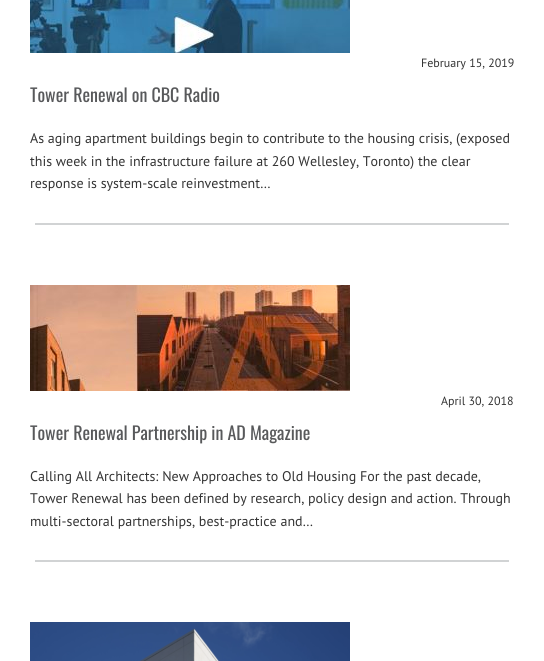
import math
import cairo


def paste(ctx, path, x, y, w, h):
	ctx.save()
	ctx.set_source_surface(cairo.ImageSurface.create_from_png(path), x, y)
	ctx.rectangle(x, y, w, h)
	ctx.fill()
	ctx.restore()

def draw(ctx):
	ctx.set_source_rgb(1, 1, 1)
	ctx.paint()
	paste(ctx, 'media/1.png', 30, 0, 320, 53)
	ctx.select_font_face('PT Sans')
	ctx.set_font_size(12)
	ctx.set_source_rgb(0.2, 0.2, 0.2)
	ctx.move_to(421, 67)
	ctx.show_text('February 15, 2019')
	ctx.select_font_face('Oswald')
	ctx.set_font_size(18)
	ctx.set_source_rgb(0.345, 0.349, 0.357)
	ctx.move_to(30, 102)
	ctx.show_text('Tower Renewal on CBC Radio')
	ctx.select_font_face('PT Sans')
	ctx.set_font_size(14)
	ctx.set_source_rgb(0.2, 0.2, 0.2)
	for x, y, s in [
		(30, 143, 'As aging apartment buildings begin to contribute to the housing crisis, (exposed'),
		(30, 166, 'this week in the infrastructure failure at 260 Wellesley, Toronto) the clear'),
		(30, 188, 'response is system-scale reinvestment…'),
	]:
		ctx.move_to(x, y)
		ctx.show_text(s)
	ctx.set_source_rgb(0.82, 0.827, 0.831)
	ctx.rectangle(35, 223, 474, 2)
	ctx.fill()
	paste(ctx, 'media/2.png', 30, 285, 320, 106)
	ctx.set_font_size(12)
	ctx.set_source_rgb(0.2, 0.2, 0.2)
	ctx.move_to(441, 405)
	ctx.show_text('April 30, 2018')
	ctx.select_font_face('Oswald')
	ctx.set_font_size(18)
	ctx.set_source_rgb(0.345, 0.349, 0.357)
	ctx.move_to(30, 440)
	ctx.show_text('Tower Renewal Partnership in AD Magazine')
	ctx.select_font_face('PT Sans')
	ctx.set_font_size(14)
	ctx.set_source_rgb(0.2, 0.2, 0.2)
	for x, y, s in [
		(30, 481, 'Calling All Architects: New Approaches to Old Housing For the past decade,'),
		(30, 503, 'Tower Renewal has been defined by research, policy design and action. Through'),
		(30, 526, 'multi-sectoral partnerships, best-practice and…'),
	]:
		ctx.move_to(x, y)
		ctx.show_text(s)
	ctx.set_source_rgb(0.82, 0.827, 0.831)
	ctx.rectangle(35, 560, 474, 2)
	ctx.fill()
	paste(ctx, 'media/3.png', 30, 622, 320, 39)


surface = cairo.ImageSurface(cairo.FORMAT_RGB24, 544, 661)
ctx = cairo.Context(surface)
options = cairo.FontOptions()
options.set_hint_metrics(cairo.HINT_METRICS_OFF)
options.set_hint_style(cairo.HINT_STYLE_NONE)
ctx.set_font_options(options)
ctx.set_miter_limit(4)
draw(ctx)
surface.write_to_png('image.png')
